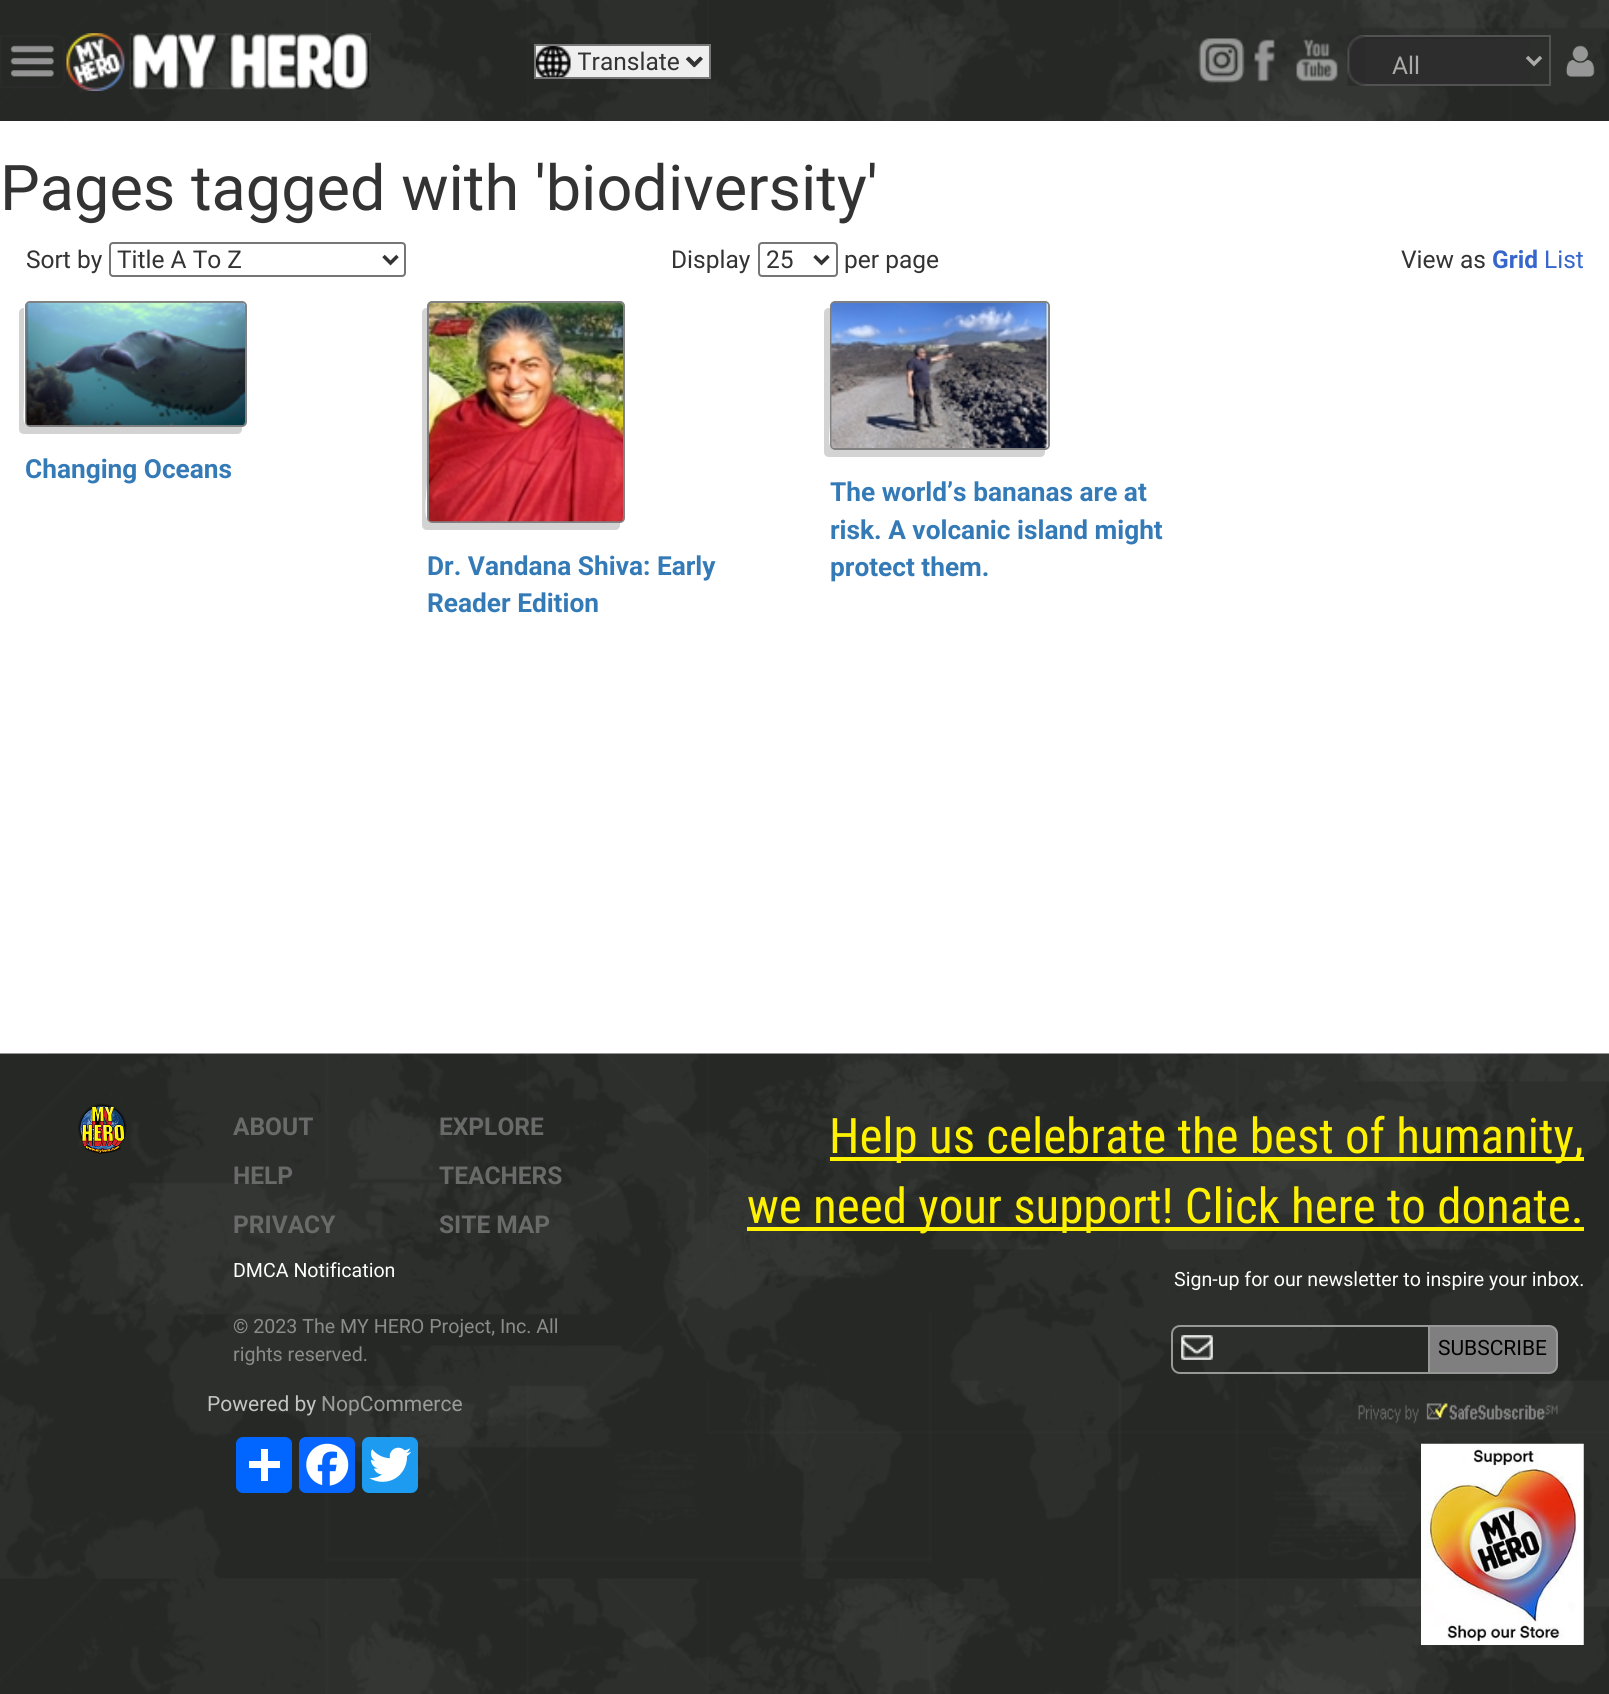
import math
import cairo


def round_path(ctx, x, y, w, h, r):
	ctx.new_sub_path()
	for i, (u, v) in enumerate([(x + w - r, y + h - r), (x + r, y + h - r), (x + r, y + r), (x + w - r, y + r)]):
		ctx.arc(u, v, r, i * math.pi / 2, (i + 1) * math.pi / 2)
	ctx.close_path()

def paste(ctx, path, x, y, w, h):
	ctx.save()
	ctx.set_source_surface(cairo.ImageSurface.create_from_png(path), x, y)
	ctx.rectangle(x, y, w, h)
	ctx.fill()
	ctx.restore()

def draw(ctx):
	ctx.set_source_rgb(1, 1, 1)
	ctx.paint()
	paste(ctx, 'media/1.png', 0, 0, 1609, 121)
	ctx.new_path()
	ctx.move_to(1, 36)
	ctx.line_to(56, 36)
	ctx.curve_to(60.5, 36, 64, 39.5, 64, 44)
	ctx.line_to(64, 79)
	ctx.curve_to(64, 83.5, 60.5, 87, 56, 87)
	ctx.line_to(1, 87)
	ctx.close_path()
	ctx.set_source_rgb(0.161, 0.165, 0.161)
	ctx.stroke()
	paste(ctx, 'media/2.png', 10, 45, 44, 32)
	paste(ctx, 'media/3.png', 66, 33, 59, 58)
	paste(ctx, 'media/4.png', 129, 33, 242, 57)
	ctx.set_source_rgb(0.937, 0.937, 0.937)
	ctx.rectangle(536, 46, 173, 31)
	ctx.fill()
	paste(ctx, 'media/5.png', 536, 46, 167, 31)
	ctx.rectangle(535, 45, 175, 33)
	ctx.set_source_rgb(0.463, 0.463, 0.463)
	ctx.stroke()
	ctx.new_path()
	ctx.move_to(687, 58)
	ctx.line_to(694, 65)
	ctx.line_to(701, 58)
	ctx.set_source_rgb(0.2, 0.2, 0.2)
	ctx.set_line_width(3.5)
	ctx.stroke()
	ctx.save()
	ctx.rectangle(578, 46, 103, 31)
	ctx.clip()
	ctx.select_font_face('Roboto')
	ctx.set_font_size(24.5)
	ctx.move_to(577, 70)
	ctx.show_text('Translate')
	ctx.restore()
	paste(ctx, 'media/6.png', 1198, 38, 47, 45)
	paste(ctx, 'media/7.png', 1254, 39, 21, 43)
	paste(ctx, 'media/8.png', 1296, 39, 42, 43)
	paste(ctx, 'media/9.png', 1347, 35, 18, 51)
	ctx.set_source_rgb(0.176, 0.176, 0.176)
	ctx.rectangle(1365, 39, 165, 45)
	ctx.fill()
	ctx.set_source_rgb(0.165, 0.165, 0.165)
	ctx.rectangle(1365, 37, 184, 2)
	ctx.fill()
	ctx.set_source_rgb(0.322, 0.322, 0.322)
	ctx.rectangle(1365, 35, 186, 2)
	ctx.rectangle(1549, 35, 2, 51)
	ctx.rectangle(1365, 84, 186, 2)
	ctx.fill()
	ctx.new_path()
	ctx.move_to(1527, 57)
	ctx.line_to(1534, 64)
	ctx.line_to(1541, 57)
	ctx.set_source_rgb(0.671, 0.671, 0.667)
	ctx.stroke()
	ctx.select_font_face('Roboto')
	ctx.set_font_size(24.5)
	ctx.move_to(1392, 74)
	ctx.show_text('All')
	paste(ctx, 'media/10.png', 1566, 45, 29, 32)
	ctx.set_font_size(63)
	ctx.set_source_rgb(0.2, 0.2, 0.2)
	ctx.move_to(0, 210)
	ctx.show_text('Pages tagged with \'biodiversity\'')
	ctx.set_font_size(24.5)
	ctx.move_to(26, 268)
	ctx.show_text('Sort by')
	round_path(ctx, 110, 243, 295, 33, 3)
	ctx.set_source_rgb(0.463, 0.463, 0.463)
	ctx.set_line_width(2)
	ctx.stroke()
	ctx.new_path()
	ctx.move_to(383.5, 256)
	ctx.line_to(390.5, 263)
	ctx.line_to(397.5, 256)
	ctx.set_source_rgb(0.2, 0.2, 0.2)
	ctx.set_line_width(3.5)
	ctx.stroke()
	ctx.move_to(117, 268)
	ctx.show_text('Title A To Z')
	ctx.move_to(671, 268)
	ctx.show_text('Display')
	round_path(ctx, 759, 243, 78, 33, 3)
	ctx.set_source_rgb(0.463, 0.463, 0.463)
	ctx.set_line_width(2)
	ctx.stroke()
	ctx.new_path()
	ctx.move_to(814.5, 256)
	ctx.line_to(821.5, 263)
	ctx.line_to(828.5, 256)
	ctx.set_source_rgb(0.2, 0.2, 0.2)
	ctx.set_line_width(3.5)
	ctx.stroke()
	for x, y, s in [
		(766, 268, '25'),
		(844, 268, 'per page'),
		(1401, 268, 'View as'),
	]:
		ctx.move_to(x, y)
		ctx.show_text(s)
	ctx.select_font_face('Roboto', cairo.FONT_SLANT_NORMAL, cairo.FONT_WEIGHT_BOLD)
	ctx.set_source_rgb(0.212, 0.4, 0.8)
	ctx.move_to(1492, 268)
	ctx.show_text('Grid')
	ctx.select_font_face('Roboto')
	ctx.move_to(1544, 268)
	ctx.show_text('List')
	ctx.set_source_rgb(0.827, 0.827, 0.827)
	ctx.new_path()
	ctx.move_to(24, 308)
	ctx.curve_to(21, 308, 19, 310, 19, 313)
	ctx.line_to(19, 429)
	ctx.curve_to(19, 432, 21, 434, 24, 434)
	ctx.line_to(237, 434)
	ctx.curve_to(240, 434, 242, 432, 242, 429)
	ctx.line_to(242, 427)
	ctx.line_to(30, 427)
	ctx.curve_to(21, 427, 24, 412, 24, 403)
	ctx.close_path()
	ctx.fill()
	round_path(ctx, 26, 302, 220, 124, 4)
	ctx.set_source_rgb(0.502, 0.502, 0.502)
	ctx.set_line_width(2)
	ctx.stroke()
	paste(ctx, 'media/11.png', 26, 302, 219, 124)
	ctx.select_font_face('Roboto', cairo.FONT_SLANT_NORMAL, cairo.FONT_WEIGHT_BOLD)
	ctx.set_font_size(26.25)
	ctx.set_source_rgb(0.2, 0.478, 0.718)
	ctx.move_to(25, 478)
	ctx.show_text('Changing Oceans')
	ctx.set_source_rgb(0.827, 0.827, 0.827)
	ctx.new_path()
	ctx.move_to(427, 308)
	ctx.curve_to(424, 308, 422, 310, 422, 313)
	ctx.line_to(422, 525)
	ctx.curve_to(422, 528, 424, 530, 427, 530)
	ctx.line_to(615, 530)
	ctx.curve_to(618, 530, 620, 528, 620, 525)
	ctx.line_to(620, 523)
	ctx.line_to(432, 523)
	ctx.curve_to(421, 523, 427, 492, 427, 483)
	ctx.close_path()
	ctx.fill()
	round_path(ctx, 428, 302, 196, 220, 4)
	ctx.set_source_rgb(0.502, 0.502, 0.502)
	ctx.stroke()
	paste(ctx, 'media/12.png', 428, 302, 195, 220)
	ctx.set_source_rgb(0.2, 0.478, 0.718)
	ctx.move_to(427, 575)
	ctx.show_text('Dr. Vandana Shiva: Early')
	ctx.move_to(427, 612)
	ctx.show_text('Reader Edition')
	ctx.set_source_rgb(0.827, 0.827, 0.827)
	ctx.new_path()
	ctx.move_to(829, 308)
	ctx.curve_to(826, 308, 824, 310, 824, 313)
	ctx.line_to(824, 452)
	ctx.curve_to(824, 455, 826, 457, 829, 457)
	ctx.line_to(1040, 457)
	ctx.curve_to(1043, 457, 1045, 455, 1045, 452)
	ctx.line_to(1045, 450)
	ctx.line_to(835, 450)
	ctx.curve_to(826, 450, 830, 432, 830, 422)
	ctx.line_to(830, 308)
	ctx.close_path()
	ctx.fill()
	round_path(ctx, 831, 302, 218, 147, 4)
	ctx.set_source_rgb(0.502, 0.502, 0.502)
	ctx.stroke()
	paste(ctx, 'media/13.png', 831, 302, 218, 146)
	ctx.set_source_rgb(0.2, 0.478, 0.718)
	for x, y, s in [
		(830, 501, 'The world’s bananas are at'),
		(830, 539, 'risk. A volcanic island might'),
		(830, 576, 'protect them.'),
	]:
		ctx.move_to(x, y)
		ctx.show_text(s)
	paste(ctx, 'media/14.png', 0, 1053, 1609, 641)
	paste(ctx, 'media/15.png', 78, 1103, 49, 51)
	ctx.set_font_size(24.5)
	ctx.set_source_rgb(0.416, 0.416, 0.416)
	for x, y, s in [
		(233, 1135, 'ABOUT'),
		(233, 1184, 'HELP'),
		(233, 1233, 'PRIVACY'),
		(439, 1135, 'EXPLORE'),
		(439, 1184, 'TEACHERS'),
		(439, 1233, 'SITE MAP'),
	]:
		ctx.move_to(x, y)
		ctx.show_text(s)
	ctx.select_font_face('Roboto')
	ctx.set_font_size(19.6)
	ctx.set_source_rgb(1, 1, 1)
	ctx.move_to(233, 1277)
	ctx.show_text('DMCA Notification')
	ctx.set_source_rgb(0.545, 0.545, 0.545)
	ctx.move_to(233, 1333)
	ctx.show_text('© 2023 The MY HERO Project, Inc. All')
	ctx.move_to(233, 1361)
	ctx.show_text('rights reserved.')
	ctx.set_font_size(21)
	ctx.set_source_rgb(0.769, 0.769, 0.769)
	ctx.move_to(207, 1411)
	ctx.show_text('Powered by')
	ctx.set_source_rgb(0.608, 0.608, 0.608)
	ctx.move_to(321, 1411)
	ctx.show_text('NopCommerce')
	ctx.set_source_rgb(0.004, 0.4, 1)
	round_path(ctx, 236, 1437, 56, 56, 7)
	ctx.fill()
	ctx.set_source_rgb(1, 1, 1)
	ctx.rectangle(261, 1449, 7, 32)
	ctx.fill()
	ctx.rectangle(249, 1461, 31, 7)
	ctx.fill()
	ctx.set_source_rgb(0.031, 0.4, 1)
	round_path(ctx, 299, 1437, 56, 56, 7)
	ctx.fill()
	paste(ctx, 'media/16.png', 306, 1443, 43, 43)
	ctx.set_source_rgb(0.114, 0.608, 0.941)
	round_path(ctx, 362, 1437, 56, 56, 7)
	ctx.fill()
	paste(ctx, 'media/17.png', 369, 1447, 43, 35)
	ctx.set_source_rgb(1, 0.949, 0)
	ctx.rectangle(830, 1157, 754, 4)
	ctx.fill()
	ctx.select_font_face('Roboto Condensed')
	ctx.set_font_size(49)
	ctx.move_to(829, 1153)
	ctx.show_text('Help us celebrate the best of humanity,')
	ctx.rectangle(747, 1227, 837, 4)
	ctx.fill()
	ctx.move_to(747, 1223)
	ctx.show_text('we need your support! Click here to donate.')
	ctx.select_font_face('Roboto')
	ctx.set_font_size(19.6)
	ctx.set_source_rgb(1, 1, 1)
	ctx.move_to(1174, 1286)
	ctx.show_text('Sign-up for our newsletter to inspire your inbox.')
	paste(ctx, 'media/18.png', 1181, 1335, 32, 25)
	ctx.new_path()
	ctx.move_to(1180, 1326)
	ctx.line_to(1432, 1326)
	ctx.line_to(1432, 1373)
	ctx.line_to(1180, 1373)
	ctx.curve_to(1175.5, 1373, 1172, 1369.5, 1172, 1365)
	ctx.line_to(1172, 1334)
	ctx.curve_to(1172, 1329.5, 1175.5, 1326, 1180, 1326)
	ctx.close_path()
	ctx.set_source_rgb(0.596, 0.596, 0.596)
	ctx.stroke()
	ctx.set_source_rgb(0.498, 0.498, 0.498)
	ctx.new_path()
	ctx.move_to(1429, 1326)
	ctx.line_to(1549, 1326)
	ctx.curve_to(1553.5, 1326, 1557, 1329.5, 1557, 1334)
	ctx.line_to(1557, 1365)
	ctx.curve_to(1557, 1369.5, 1553.5, 1373, 1549, 1373)
	ctx.line_to(1429, 1373)
	ctx.close_path()
	ctx.fill_preserve()
	ctx.set_source_rgb(0.596, 0.596, 0.596)
	ctx.stroke()
	ctx.set_font_size(21)
	ctx.set_source_rgb(0, 0, 0)
	ctx.move_to(1438, 1355)
	ctx.show_text('SUBSCRIBE')
	paste(ctx, 'media/19.png', 1358, 1403, 200, 21)
	paste(ctx, 'media/20.png', 1421, 1443, 163, 202)


surface = cairo.ImageSurface(cairo.FORMAT_RGB24, 1609, 1694)
ctx = cairo.Context(surface)
options = cairo.FontOptions()
options.set_hint_metrics(cairo.HINT_METRICS_OFF)
options.set_hint_style(cairo.HINT_STYLE_NONE)
ctx.set_font_options(options)
ctx.set_miter_limit(4)
draw(ctx)
surface.write_to_png('image.png')
